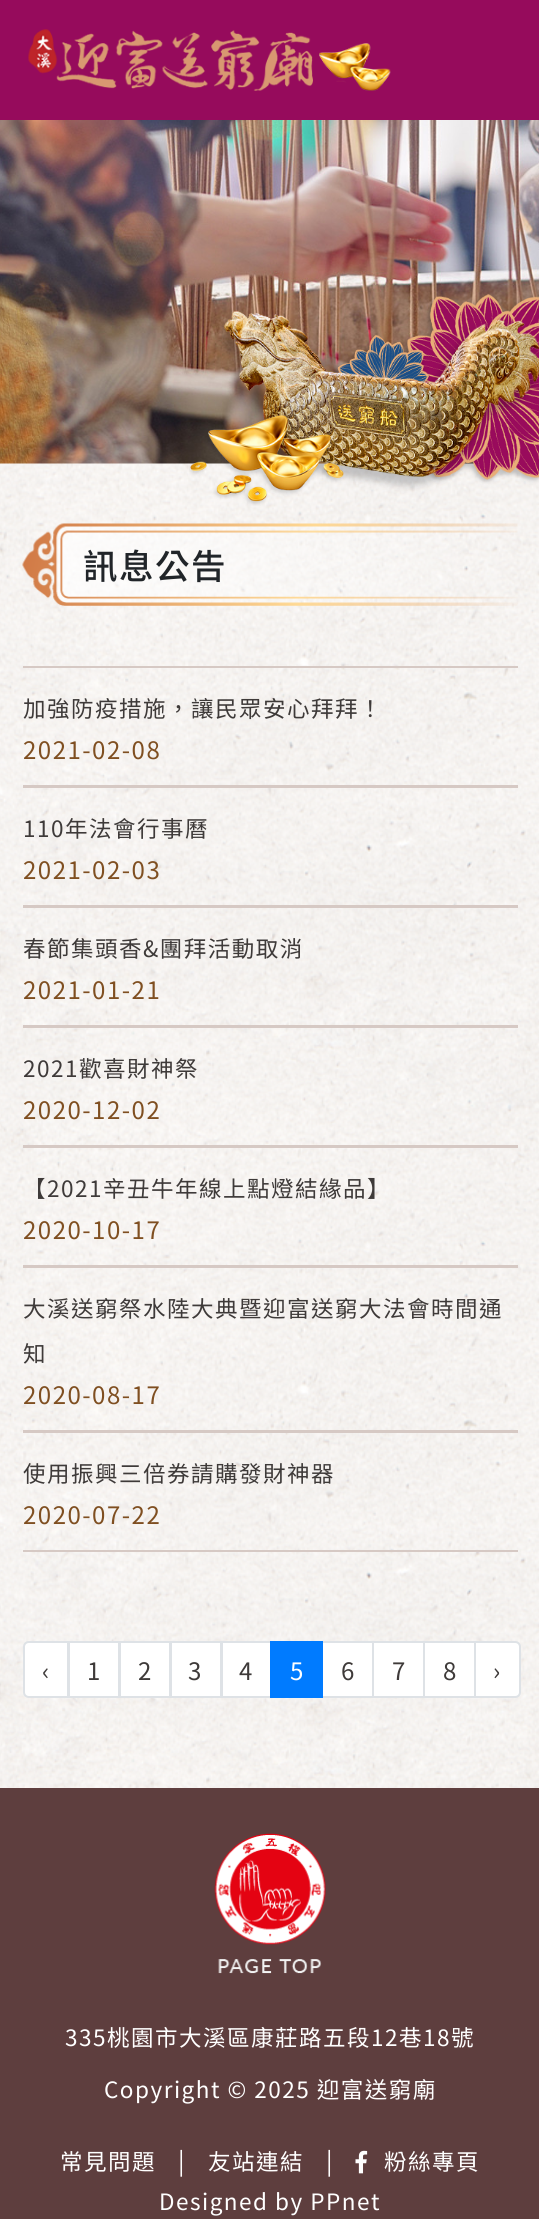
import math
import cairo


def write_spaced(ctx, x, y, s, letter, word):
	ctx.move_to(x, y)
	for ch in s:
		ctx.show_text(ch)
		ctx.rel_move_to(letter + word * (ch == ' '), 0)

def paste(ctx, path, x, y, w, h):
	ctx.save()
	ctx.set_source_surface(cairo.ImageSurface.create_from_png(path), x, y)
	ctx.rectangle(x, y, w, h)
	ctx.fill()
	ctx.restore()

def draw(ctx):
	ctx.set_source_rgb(1, 1, 1)
	ctx.paint()
	paste(ctx, 'media/1.png', 0, 463, 539, 1325)
	ctx.set_source_rgb(0.588, 0.043, 0.361)
	ctx.rectangle(0, 0, 539, 120)
	ctx.fill()
	paste(ctx, 'media/2.png', 28, 29, 363, 62)
	paste(ctx, 'media/3.png', 0, 120, 539, 344)
	paste(ctx, 'media/4.png', 189, 294, 350, 212)
	paste(ctx, 'media/5.png', 22, 523, 496, 83)
	ctx.select_font_face('Noto Sans TC Medium')
	ctx.set_font_size(34.5)
	ctx.set_source_rgb(0.129, 0.145, 0.161)
	write_spaced(ctx, 83, 579, '訊息公告', 1.5, 0)
	ctx.set_source_rgb(0.839, 0.788, 0.769)
	ctx.rectangle(23, 666, 495, 2)
	ctx.fill()
	ctx.rectangle(23, 785, 495, 3)
	ctx.fill()
	ctx.select_font_face('Noto Sans TC')
	ctx.set_font_size(22.5)
	ctx.set_source_rgb(0.243, 0.227, 0.224)
	write_spaced(ctx, 23, 717, '加強防疫措施，讓民眾安心拜拜！', 1.5, 0)
	ctx.set_font_size(24)
	ctx.set_source_rgb(0.498, 0.31, 0.129)
	write_spaced(ctx, 23, 759, '2021-02-08', 1.5, 0)
	ctx.set_source_rgb(0.839, 0.788, 0.769)
	ctx.rectangle(23, 905, 495, 3)
	ctx.fill()
	ctx.set_font_size(22.5)
	ctx.set_source_rgb(0.243, 0.227, 0.224)
	write_spaced(ctx, 23, 837, '110年法會行事曆', 1.5, 0)
	ctx.set_font_size(24)
	ctx.set_source_rgb(0.498, 0.31, 0.129)
	write_spaced(ctx, 23, 879, '2021-02-03', 1.5, 0)
	ctx.set_source_rgb(0.839, 0.788, 0.769)
	ctx.rectangle(23, 1025, 495, 3)
	ctx.fill()
	ctx.set_font_size(22.5)
	ctx.set_source_rgb(0.243, 0.227, 0.224)
	write_spaced(ctx, 23, 957, '春節集頭香&團拜活動取消', 1.5, 0)
	ctx.set_font_size(24)
	ctx.set_source_rgb(0.498, 0.31, 0.129)
	write_spaced(ctx, 23, 999, '2021-01-21', 1.5, 0)
	ctx.set_source_rgb(0.839, 0.788, 0.769)
	ctx.rectangle(23, 1145, 495, 3)
	ctx.fill()
	ctx.set_font_size(22.5)
	ctx.set_source_rgb(0.243, 0.227, 0.224)
	write_spaced(ctx, 23, 1077, '2021歡喜財神祭', 1.5, 0)
	ctx.set_font_size(24)
	ctx.set_source_rgb(0.498, 0.31, 0.129)
	write_spaced(ctx, 23, 1119, '2020-12-02', 1.5, 0)
	ctx.set_source_rgb(0.839, 0.788, 0.769)
	ctx.rectangle(23, 1265, 495, 3)
	ctx.fill()
	ctx.set_font_size(22.5)
	ctx.set_source_rgb(0.243, 0.227, 0.224)
	write_spaced(ctx, 23, 1197, '【2021辛丑牛年線上點燈結緣品】', 1.5, 0)
	ctx.set_font_size(24)
	ctx.set_source_rgb(0.498, 0.31, 0.129)
	write_spaced(ctx, 23, 1239, '2020-10-17', 1.5, 0)
	ctx.set_source_rgb(0.839, 0.788, 0.769)
	ctx.rectangle(23, 1430, 495, 3)
	ctx.fill()
	ctx.set_font_size(22.5)
	ctx.set_source_rgb(0.243, 0.227, 0.224)
	write_spaced(ctx, 23, 1317, '大溪送窮祭水陸大典暨迎富送窮大法會時間通', 1.5, 0)
	write_spaced(ctx, 23, 1362, '知', 1.5, 0)
	ctx.set_font_size(24)
	ctx.set_source_rgb(0.498, 0.31, 0.129)
	write_spaced(ctx, 23, 1404, '2020-08-17', 1.5, 0)
	ctx.set_source_rgb(0.839, 0.788, 0.769)
	ctx.rectangle(23, 1550, 495, 2)
	ctx.fill()
	ctx.set_font_size(22.5)
	ctx.set_source_rgb(0.243, 0.227, 0.224)
	write_spaced(ctx, 23, 1482, '使用振興三倍券請購發財神器', 1.5, 0)
	ctx.set_font_size(24)
	ctx.set_source_rgb(0.498, 0.31, 0.129)
	write_spaced(ctx, 23, 1524, '2020-07-22', 1.5, 0)
	ctx.set_source_rgb(1, 1, 1)
	ctx.new_path()
	ctx.move_to(29, 1642)
	ctx.line_to(68, 1642)
	ctx.line_to(68, 1697)
	ctx.line_to(29, 1697)
	ctx.curve_to(26, 1697, 24, 1695, 24, 1692)
	ctx.line_to(24, 1647)
	ctx.curve_to(24, 1644, 26, 1642, 29, 1642)
	ctx.close_path()
	ctx.fill_preserve()
	ctx.set_source_rgb(0.871, 0.886, 0.902)
	ctx.stroke()
	ctx.set_source_rgb(0.243, 0.227, 0.224)
	ctx.move_to(42, 1680)
	ctx.show_text('‹')
	ctx.set_source_rgb(1, 1, 1)
	ctx.rectangle(69, 1642, 50, 55)
	ctx.fill_preserve()
	ctx.set_source_rgb(0.871, 0.886, 0.902)
	ctx.stroke()
	ctx.set_source_rgb(0.243, 0.227, 0.224)
	ctx.move_to(87, 1680)
	ctx.show_text('1')
	ctx.set_source_rgb(1, 1, 1)
	ctx.rectangle(120, 1642, 50, 55)
	ctx.fill_preserve()
	ctx.set_source_rgb(0.871, 0.886, 0.902)
	ctx.stroke()
	ctx.set_source_rgb(0.243, 0.227, 0.224)
	ctx.move_to(138, 1680)
	ctx.show_text('2')
	ctx.set_source_rgb(1, 1, 1)
	ctx.rectangle(171, 1642, 50, 55)
	ctx.fill_preserve()
	ctx.set_source_rgb(0.871, 0.886, 0.902)
	ctx.stroke()
	ctx.set_source_rgb(0.243, 0.227, 0.224)
	ctx.move_to(188, 1680)
	ctx.show_text('3')
	ctx.set_source_rgb(1, 1, 1)
	ctx.rectangle(222, 1642, 49, 55)
	ctx.fill_preserve()
	ctx.set_source_rgb(0.871, 0.886, 0.902)
	ctx.stroke()
	ctx.set_source_rgb(0.243, 0.227, 0.224)
	ctx.move_to(239, 1680)
	ctx.show_text('4')
	ctx.set_source_rgb(1, 1, 1)
	ctx.rectangle(322, 1642, 51, 55)
	ctx.fill_preserve()
	ctx.set_source_rgb(0.871, 0.886, 0.902)
	ctx.stroke()
	ctx.set_source_rgb(0, 0.482, 1)
	ctx.rectangle(270, 1641, 53, 57)
	ctx.fill()
	ctx.set_source_rgb(1, 1, 1)
	ctx.move_to(290, 1680)
	ctx.show_text('5')
	ctx.set_source_rgb(0.243, 0.227, 0.224)
	ctx.move_to(341, 1680)
	ctx.show_text('6')
	ctx.set_source_rgb(1, 1, 1)
	ctx.rectangle(373, 1642, 51, 55)
	ctx.fill_preserve()
	ctx.set_source_rgb(0.871, 0.886, 0.902)
	ctx.stroke()
	ctx.set_source_rgb(0.243, 0.227, 0.224)
	ctx.move_to(392, 1680)
	ctx.show_text('7')
	ctx.set_source_rgb(1, 1, 1)
	ctx.rectangle(424, 1642, 51, 55)
	ctx.fill_preserve()
	ctx.set_source_rgb(0.871, 0.886, 0.902)
	ctx.stroke()
	ctx.set_source_rgb(0.243, 0.227, 0.224)
	ctx.move_to(443, 1680)
	ctx.show_text('8')
	ctx.set_source_rgb(1, 1, 1)
	ctx.new_path()
	ctx.move_to(475, 1642)
	ctx.line_to(515, 1642)
	ctx.curve_to(518, 1642, 520, 1644, 520, 1647)
	ctx.line_to(520, 1692)
	ctx.curve_to(520, 1695, 518, 1697, 515, 1697)
	ctx.line_to(475, 1697)
	ctx.close_path()
	ctx.fill_preserve()
	ctx.set_source_rgb(0.871, 0.886, 0.902)
	ctx.stroke()
	ctx.set_source_rgb(0.243, 0.227, 0.224)
	ctx.move_to(493, 1680)
	ctx.show_text('›')
	ctx.set_source_rgb(0.369, 0.243, 0.243)
	ctx.rectangle(0, 1788, 539, 431)
	ctx.fill()
	paste(ctx, 'media/6.png', 214, 1833, 112, 141)
	ctx.set_font_size(22.5)
	ctx.set_source_rgb(1, 1, 1)
	for x, y, s in [
		(65, 2046, '335桃園市大溪區康莊路五段12巷18號'),
		(104, 2098, 'Copyright © 2025 迎富送窮廟'),
		(60, 2170, '常見問題'),
	]:
		write_spaced(ctx, x, y, s, 1.5, 0)
	ctx.set_font_size(24)
	write_spaced(ctx, 178, 2170, '|', 1.5, 0)
	ctx.set_font_size(22.5)
	write_spaced(ctx, 208, 2170, '友站連結', 1.5, 0)
	ctx.set_font_size(24)
	write_spaced(ctx, 326, 2170, '|', 1.5, 0)
	paste(ctx, 'media/7.png', 355, 2150, 13, 24)
	ctx.set_font_size(22.5)
	write_spaced(ctx, 384, 2170, '粉絲專頁', 1.5, 0)
	write_spaced(ctx, 159, 2210, 'Designed by PPnet', 1.5, 0)


surface = cairo.ImageSurface(cairo.FORMAT_RGB24, 539, 2219)
ctx = cairo.Context(surface)
options = cairo.FontOptions()
options.set_hint_metrics(cairo.HINT_METRICS_OFF)
options.set_hint_style(cairo.HINT_STYLE_NONE)
ctx.set_font_options(options)
ctx.set_miter_limit(4)
draw(ctx)
surface.write_to_png('image.png')
